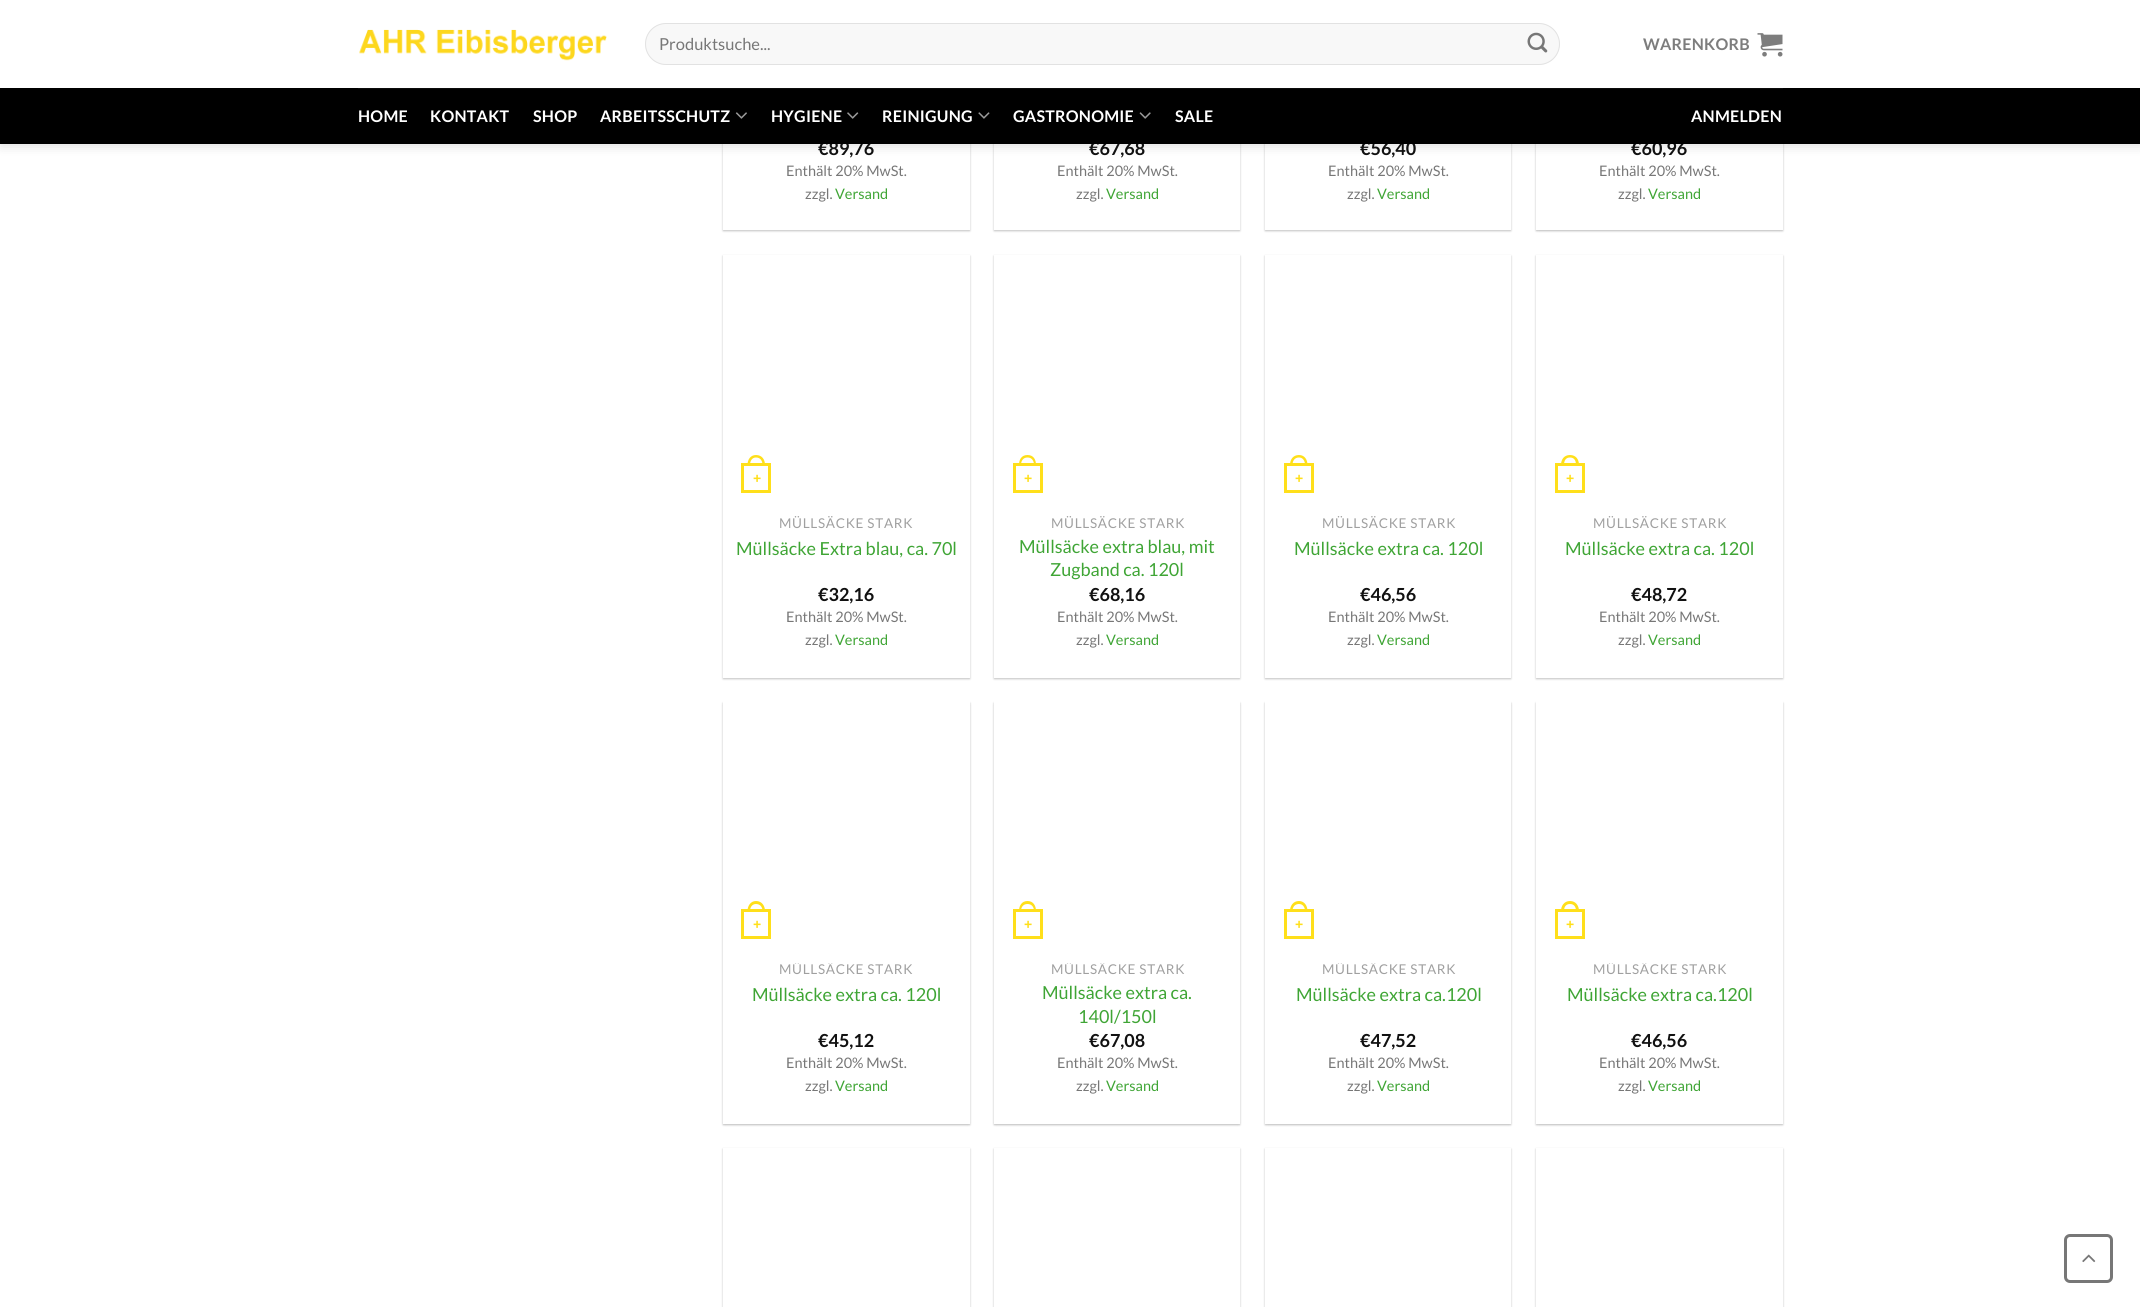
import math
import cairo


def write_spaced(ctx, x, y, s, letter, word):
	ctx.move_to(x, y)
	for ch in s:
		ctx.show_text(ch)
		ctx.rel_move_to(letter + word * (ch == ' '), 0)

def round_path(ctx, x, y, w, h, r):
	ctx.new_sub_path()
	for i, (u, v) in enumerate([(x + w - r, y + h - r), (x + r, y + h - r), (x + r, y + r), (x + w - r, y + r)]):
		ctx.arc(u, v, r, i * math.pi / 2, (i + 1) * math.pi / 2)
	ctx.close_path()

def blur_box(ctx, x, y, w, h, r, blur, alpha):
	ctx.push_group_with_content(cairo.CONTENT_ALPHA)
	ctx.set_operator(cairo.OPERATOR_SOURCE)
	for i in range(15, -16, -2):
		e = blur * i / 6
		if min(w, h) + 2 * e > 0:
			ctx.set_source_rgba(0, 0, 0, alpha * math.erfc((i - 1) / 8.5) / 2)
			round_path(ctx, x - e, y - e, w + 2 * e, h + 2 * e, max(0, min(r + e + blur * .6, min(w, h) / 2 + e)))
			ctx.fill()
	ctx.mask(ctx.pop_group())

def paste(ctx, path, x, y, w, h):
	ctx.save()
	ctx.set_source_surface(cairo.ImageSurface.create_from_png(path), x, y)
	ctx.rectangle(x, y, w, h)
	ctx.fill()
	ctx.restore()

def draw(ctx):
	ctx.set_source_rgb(1, 1, 1)
	ctx.paint()
	ctx.set_source_rgb(0, 0, 0)
	blur_box(ctx, 1536, -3, 247, 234, 0, 1, 0.24)
	blur_box(ctx, 1539, -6, 241, 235, 0, 2, 0.12)
	ctx.set_source_rgb(1, 1, 1)
	ctx.rectangle(1536, 144, 247, 86)
	ctx.fill()
	ctx.set_source_rgb(0, 0, 0)
	blur_box(ctx, 1, 1, 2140, 144, 0, 6, 0.15)
	ctx.save()
	ctx.set_fill_rule(cairo.FILL_RULE_EVEN_ODD)
	ctx.new_path()
	ctx.move_to(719, 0)
	ctx.line_to(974, 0)
	ctx.line_to(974, 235)
	ctx.line_to(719, 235)
	ctx.close_path()
	ctx.move_to(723, -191)
	ctx.line_to(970, -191)
	ctx.line_to(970, 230)
	ctx.line_to(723, 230)
	ctx.close_path()
	ctx.clip()
	blur_box(ctx, 723, -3, 247, 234, 0, 1, 0.24)
	ctx.restore()
	ctx.save()
	ctx.set_fill_rule(cairo.FILL_RULE_EVEN_ODD)
	ctx.new_path()
	ctx.move_to(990, 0)
	ctx.line_to(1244, 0)
	ctx.line_to(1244, 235)
	ctx.line_to(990, 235)
	ctx.close_path()
	ctx.move_to(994, -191)
	ctx.line_to(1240, -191)
	ctx.line_to(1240, 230)
	ctx.line_to(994, 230)
	ctx.close_path()
	ctx.clip()
	blur_box(ctx, 994, -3, 246, 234, 0, 1, 0.24)
	ctx.restore()
	ctx.save()
	ctx.set_fill_rule(cairo.FILL_RULE_EVEN_ODD)
	ctx.new_path()
	ctx.move_to(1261, 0)
	ctx.line_to(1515, 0)
	ctx.line_to(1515, 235)
	ctx.line_to(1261, 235)
	ctx.close_path()
	ctx.move_to(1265, -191)
	ctx.line_to(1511, -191)
	ctx.line_to(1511, 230)
	ctx.line_to(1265, 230)
	ctx.close_path()
	ctx.clip()
	blur_box(ctx, 1265, -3, 246, 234, 0, 1, 0.24)
	ctx.restore()
	ctx.set_source_rgb(1, 1, 1)
	ctx.rectangle(0, 0, 2140, 88)
	ctx.fill()
	paste(ctx, 'media/1.png', 359, 29, 248, 32)
	ctx.set_source_rgb(0.969, 0.969, 0.969)
	round_path(ctx, 645, 23, 915, 42, 21)
	ctx.fill()
	round_path(ctx, 645.5, 23.5, 914, 41, 20.5)
	ctx.set_source_rgba(0, 0, 0, 0.09)
	ctx.set_line_width(1)
	ctx.stroke()
	ctx.select_font_face('Lato')
	ctx.set_font_size(16.5)
	ctx.set_source_rgb(0.467, 0.467, 0.467)
	ctx.move_to(659, 50)
	ctx.show_text('Produktsuche...')
	paste(ctx, 'media/2.png', 1527, 32, 21, 21)
	ctx.select_font_face('Lato', cairo.FONT_SLANT_NORMAL, cairo.FONT_WEIGHT_BOLD)
	ctx.set_font_size(16)
	ctx.set_source_rgb(0.49, 0.49, 0.49)
	write_spaced(ctx, 1643, 50, 'WARENKORB', 0.25, 0)
	paste(ctx, 'media/3.png', 1757, 33, 26, 24)
	ctx.set_font_size(18)
	ctx.set_source_rgb(0.067, 0.067, 0.067)
	for x, y, s in [
		(818, 155, '€89,76'),
		(1089, 155, '€67,68'),
		(1360, 155, '€56,40'),
		(1631, 155, '€60,96'),
	]:
		ctx.move_to(x, y)
		ctx.show_text(s)
	ctx.set_source_rgb(0, 0, 0)
	ctx.rectangle(0, 88, 2140, 56)
	ctx.fill()
	ctx.set_source_rgb(0.047, 0.047, 0.047)
	ctx.rectangle(358, 88, 1425, 1)
	ctx.fill()
	ctx.set_font_size(16)
	ctx.set_source_rgb(1, 1, 1)
	for x, y, s in [
		(358, 122, 'HOME'),
		(430, 122, 'KONTAKT'),
		(533, 122, 'SHOP'),
		(600, 122, 'ARBEITSSCHUTZ'),
	]:
		write_spaced(ctx, x, y, s, 0.25, 0)
	paste(ctx, 'media/4.png', 735, 112, 12, 7)
	write_spaced(ctx, 771, 122, 'HYGIENE', 0.25, 0)
	paste(ctx, 'media/5.png', 847, 112, 12, 7)
	write_spaced(ctx, 882, 122, 'REINIGUNG', 0.25, 0)
	paste(ctx, 'media/6.png', 978, 112, 12, 7)
	write_spaced(ctx, 1013, 122, 'GASTRONOMIE', 0.25, 0)
	paste(ctx, 'media/7.png', 1139, 112, 12, 7)
	write_spaced(ctx, 1175, 122, 'SALE', 0.25, 0)
	write_spaced(ctx, 1691, 122, 'ANMELDEN', 0.25, 0)
	ctx.select_font_face('Lato')
	ctx.set_font_size(14.5)
	ctx.set_source_rgb(0.467, 0.467, 0.467)
	ctx.move_to(786, 176)
	ctx.show_text('Enthält 20% MwSt.')
	ctx.move_to(805, 199)
	ctx.show_text('zzgl.')
	ctx.set_source_rgb(0.247, 0.647, 0.208)
	ctx.move_to(835, 199)
	ctx.show_text('Versand')
	ctx.set_source_rgb(0.467, 0.467, 0.467)
	ctx.move_to(1057, 176)
	ctx.show_text('Enthält 20% MwSt.')
	ctx.move_to(1076, 199)
	ctx.show_text('zzgl.')
	ctx.set_source_rgb(0.247, 0.647, 0.208)
	ctx.move_to(1106, 199)
	ctx.show_text('Versand')
	ctx.set_source_rgb(0.467, 0.467, 0.467)
	ctx.move_to(1328, 176)
	ctx.show_text('Enthält 20% MwSt.')
	ctx.move_to(1347, 199)
	ctx.show_text('zzgl.')
	ctx.set_source_rgb(0.247, 0.647, 0.208)
	ctx.move_to(1377, 199)
	ctx.show_text('Versand')
	ctx.set_source_rgb(0.467, 0.467, 0.467)
	ctx.move_to(1599, 176)
	ctx.show_text('Enthält 20% MwSt.')
	ctx.move_to(1618, 199)
	ctx.show_text('zzgl.')
	ctx.set_source_rgb(0.247, 0.647, 0.208)
	ctx.move_to(1648, 199)
	ctx.show_text('Versand')
	ctx.set_source_rgb(0, 0, 0)
	blur_box(ctx, 723, 256, 247, 423, 0, 1, 0.24)
	ctx.set_source_rgb(1, 1, 1)
	ctx.rectangle(723, 255, 247, 423)
	ctx.fill()
	ctx.rectangle(742.5, 464.5, 27, 27)
	ctx.set_source_rgb(1, 0.875, 0.102)
	ctx.set_line_width(3)
	ctx.stroke()
	ctx.set_fill_rule(cairo.FILL_RULE_EVEN_ODD)
	ctx.new_path()
	ctx.move_to(756, 455)
	ctx.curve_to(762, 455, 765, 459.5, 765, 465)
	ctx.line_to(747.5, 465)
	ctx.curve_to(747.5, 459.5, 750.5, 455, 756, 455)
	ctx.close_path()
	ctx.move_to(756, 457.5)
	ctx.curve_to(760.5, 457.5, 762.5, 461, 762.5, 465)
	ctx.line_to(750, 465)
	ctx.curve_to(750, 461, 752, 457.5, 756, 457.5)
	ctx.close_path()
	ctx.fill()
	ctx.select_font_face('Liberation Sans', cairo.FONT_SLANT_NORMAL, cairo.FONT_WEIGHT_BOLD)
	ctx.set_font_size(14)
	ctx.move_to(753, 483)
	ctx.show_text('+')
	ctx.select_font_face('Lato')
	ctx.set_font_size(13.5)
	ctx.set_source_rgb(0.627, 0.627, 0.627)
	write_spaced(ctx, 779, 528, 'MÜLLSÄCKE STARK', 0.7, 0)
	ctx.set_font_size(18)
	ctx.set_source_rgb(0.247, 0.647, 0.208)
	ctx.move_to(736, 555)
	ctx.show_text('Müllsäcke Extra blau, ca. 70l')
	ctx.select_font_face('Lato', cairo.FONT_SLANT_NORMAL, cairo.FONT_WEIGHT_BOLD)
	ctx.set_source_rgb(0.067, 0.067, 0.067)
	ctx.move_to(818, 601)
	ctx.show_text('€32,16')
	ctx.select_font_face('Lato')
	ctx.set_font_size(14.5)
	ctx.set_source_rgb(0.467, 0.467, 0.467)
	ctx.move_to(786, 622)
	ctx.show_text('Enthält 20% MwSt.')
	ctx.move_to(805, 645)
	ctx.show_text('zzgl.')
	ctx.set_source_rgb(0.247, 0.647, 0.208)
	ctx.move_to(835, 645)
	ctx.show_text('Versand')
	ctx.set_source_rgb(0, 0, 0)
	blur_box(ctx, 994, 256, 246, 423, 0, 1, 0.24)
	ctx.set_source_rgb(1, 1, 1)
	ctx.rectangle(994, 255, 246, 423)
	ctx.fill()
	ctx.rectangle(1014.5, 464.5, 27, 27)
	ctx.set_source_rgb(1, 0.875, 0.102)
	ctx.stroke()
	ctx.new_path()
	ctx.move_to(1027.5, 455)
	ctx.curve_to(1033.5, 455, 1036, 459.5, 1036, 465)
	ctx.line_to(1019, 465)
	ctx.curve_to(1019, 459.5, 1021.5, 455, 1027.5, 455)
	ctx.close_path()
	ctx.move_to(1027.5, 457.5)
	ctx.curve_to(1032, 457.5, 1034, 461, 1034, 465)
	ctx.line_to(1021, 465)
	ctx.curve_to(1021, 461, 1023, 457.5, 1027.5, 457.5)
	ctx.close_path()
	ctx.fill()
	ctx.select_font_face('Liberation Sans', cairo.FONT_SLANT_NORMAL, cairo.FONT_WEIGHT_BOLD)
	ctx.set_font_size(14)
	ctx.move_to(1024, 483)
	ctx.show_text('+')
	ctx.select_font_face('Lato')
	ctx.set_font_size(13.5)
	ctx.set_source_rgb(0.627, 0.627, 0.627)
	write_spaced(ctx, 1051, 528, 'MÜLLSÄCKE STARK', 0.7, 0)
	ctx.set_font_size(18)
	ctx.set_source_rgb(0.247, 0.647, 0.208)
	ctx.move_to(1019, 553)
	ctx.show_text('Müllsäcke extra blau, mit')
	ctx.move_to(1050, 576)
	ctx.show_text('Zugband ca. 120l')
	ctx.select_font_face('Lato', cairo.FONT_SLANT_NORMAL, cairo.FONT_WEIGHT_BOLD)
	ctx.set_source_rgb(0.067, 0.067, 0.067)
	ctx.move_to(1089, 601)
	ctx.show_text('€68,16')
	ctx.select_font_face('Lato')
	ctx.set_font_size(14.5)
	ctx.set_source_rgb(0.467, 0.467, 0.467)
	ctx.move_to(1057, 622)
	ctx.show_text('Enthält 20% MwSt.')
	ctx.move_to(1076, 645)
	ctx.show_text('zzgl.')
	ctx.set_source_rgb(0.247, 0.647, 0.208)
	ctx.move_to(1106, 645)
	ctx.show_text('Versand')
	ctx.set_source_rgb(0, 0, 0)
	blur_box(ctx, 1265, 256, 246, 423, 0, 1, 0.24)
	ctx.set_source_rgb(1, 1, 1)
	ctx.rectangle(1265, 255, 246, 423)
	ctx.fill()
	ctx.rectangle(1285.5, 464.5, 27, 27)
	ctx.set_source_rgb(1, 0.875, 0.102)
	ctx.stroke()
	ctx.new_path()
	ctx.move_to(1299, 455)
	ctx.curve_to(1304.5, 455, 1307.5, 459.5, 1307.5, 465)
	ctx.line_to(1290, 465)
	ctx.curve_to(1290, 459.5, 1293, 455, 1299, 455)
	ctx.close_path()
	ctx.move_to(1299, 457.5)
	ctx.curve_to(1303, 457.5, 1305, 461, 1305, 465)
	ctx.line_to(1292.5, 465)
	ctx.curve_to(1292.5, 461, 1294.5, 457.5, 1299, 457.5)
	ctx.close_path()
	ctx.fill()
	ctx.select_font_face('Liberation Sans', cairo.FONT_SLANT_NORMAL, cairo.FONT_WEIGHT_BOLD)
	ctx.set_font_size(14)
	ctx.move_to(1295, 483)
	ctx.show_text('+')
	ctx.select_font_face('Lato')
	ctx.set_font_size(13.5)
	ctx.set_source_rgb(0.627, 0.627, 0.627)
	write_spaced(ctx, 1322, 528, 'MÜLLSÄCKE STARK', 0.7, 0)
	ctx.set_font_size(18)
	ctx.set_source_rgb(0.247, 0.647, 0.208)
	ctx.move_to(1294, 555)
	ctx.show_text('Müllsäcke extra ca. 120l')
	ctx.select_font_face('Lato', cairo.FONT_SLANT_NORMAL, cairo.FONT_WEIGHT_BOLD)
	ctx.set_source_rgb(0.067, 0.067, 0.067)
	ctx.move_to(1360, 601)
	ctx.show_text('€46,56')
	ctx.select_font_face('Lato')
	ctx.set_font_size(14.5)
	ctx.set_source_rgb(0.467, 0.467, 0.467)
	ctx.move_to(1328, 622)
	ctx.show_text('Enthält 20% MwSt.')
	ctx.move_to(1347, 645)
	ctx.show_text('zzgl.')
	ctx.set_source_rgb(0.247, 0.647, 0.208)
	ctx.move_to(1377, 645)
	ctx.show_text('Versand')
	ctx.set_source_rgb(0, 0, 0)
	blur_box(ctx, 1536, 256, 247, 423, 0, 1, 0.24)
	ctx.set_source_rgb(1, 1, 1)
	ctx.rectangle(1536, 255, 247, 423)
	ctx.fill()
	ctx.rectangle(1556.5, 464.5, 27, 27)
	ctx.set_source_rgb(1, 0.875, 0.102)
	ctx.stroke()
	ctx.new_path()
	ctx.move_to(1570, 455)
	ctx.curve_to(1576, 455, 1579, 459.5, 1579, 465)
	ctx.line_to(1561, 465)
	ctx.curve_to(1561, 459.5, 1564, 455, 1570, 455)
	ctx.close_path()
	ctx.move_to(1570, 457.5)
	ctx.curve_to(1574.5, 457.5, 1576, 461, 1576, 465)
	ctx.line_to(1564, 465)
	ctx.curve_to(1564, 461, 1565.5, 457.5, 1570, 457.5)
	ctx.close_path()
	ctx.fill()
	ctx.select_font_face('Liberation Sans', cairo.FONT_SLANT_NORMAL, cairo.FONT_WEIGHT_BOLD)
	ctx.set_font_size(14)
	ctx.move_to(1566, 483)
	ctx.show_text('+')
	ctx.select_font_face('Lato')
	ctx.set_font_size(13.5)
	ctx.set_source_rgb(0.627, 0.627, 0.627)
	write_spaced(ctx, 1593, 528, 'MÜLLSÄCKE STARK', 0.7, 0)
	ctx.set_font_size(18)
	ctx.set_source_rgb(0.247, 0.647, 0.208)
	ctx.move_to(1565, 555)
	ctx.show_text('Müllsäcke extra ca. 120l')
	ctx.select_font_face('Lato', cairo.FONT_SLANT_NORMAL, cairo.FONT_WEIGHT_BOLD)
	ctx.set_source_rgb(0.067, 0.067, 0.067)
	ctx.move_to(1631, 601)
	ctx.show_text('€48,72')
	ctx.select_font_face('Lato')
	ctx.set_font_size(14.5)
	ctx.set_source_rgb(0.467, 0.467, 0.467)
	ctx.move_to(1599, 622)
	ctx.show_text('Enthält 20% MwSt.')
	ctx.move_to(1618, 645)
	ctx.show_text('zzgl.')
	ctx.set_source_rgb(0.247, 0.647, 0.208)
	ctx.move_to(1648, 645)
	ctx.show_text('Versand')
	ctx.set_source_rgb(0, 0, 0)
	blur_box(ctx, 723, 703, 247, 422, 0, 1, 0.24)
	blur_box(ctx, 725, 705, 243, 418, 0, 2, 0.12)
	ctx.set_source_rgb(1, 1, 1)
	ctx.rectangle(723, 701, 247, 423)
	ctx.fill()
	ctx.rectangle(742.5, 910.5, 27, 27)
	ctx.set_source_rgb(1, 0.875, 0.102)
	ctx.stroke()
	ctx.new_path()
	ctx.move_to(756, 901)
	ctx.curve_to(762, 901, 765, 906, 765, 911)
	ctx.line_to(747.5, 911)
	ctx.curve_to(747.5, 906, 750.5, 901, 756, 901)
	ctx.close_path()
	ctx.move_to(756, 904)
	ctx.curve_to(760.5, 904, 762.5, 907.5, 762.5, 911)
	ctx.line_to(750, 911)
	ctx.curve_to(750, 907.5, 752, 904, 756, 904)
	ctx.close_path()
	ctx.fill()
	ctx.select_font_face('Liberation Sans', cairo.FONT_SLANT_NORMAL, cairo.FONT_WEIGHT_BOLD)
	ctx.set_font_size(14)
	ctx.move_to(753, 929)
	ctx.show_text('+')
	ctx.save()
	ctx.set_fill_rule(cairo.FILL_RULE_WINDING)
	ctx.rectangle(735, 963, 223, 15)
	ctx.clip()
	ctx.select_font_face('Lato')
	ctx.set_font_size(13.5)
	ctx.set_source_rgb(0.627, 0.627, 0.627)
	write_spaced(ctx, 779, 974, 'MÜLLSÄCKE STARK', 0.7, 0)
	ctx.restore()
	ctx.select_font_face('Lato')
	ctx.set_font_size(18)
	ctx.set_source_rgb(0.247, 0.647, 0.208)
	ctx.move_to(752, 1001)
	ctx.show_text('Müllsäcke extra ca. 120l')
	ctx.select_font_face('Lato', cairo.FONT_SLANT_NORMAL, cairo.FONT_WEIGHT_BOLD)
	ctx.set_source_rgb(0.067, 0.067, 0.067)
	ctx.move_to(818, 1047)
	ctx.show_text('€45,12')
	ctx.select_font_face('Lato')
	ctx.set_font_size(14.5)
	ctx.set_source_rgb(0.467, 0.467, 0.467)
	ctx.move_to(786, 1068)
	ctx.show_text('Enthält 20% MwSt.')
	ctx.move_to(805, 1091)
	ctx.show_text('zzgl.')
	ctx.set_source_rgb(0.247, 0.647, 0.208)
	ctx.move_to(835, 1091)
	ctx.show_text('Versand')
	ctx.set_source_rgb(0, 0, 0)
	blur_box(ctx, 994, 703, 246, 422, 0, 1, 0.24)
	blur_box(ctx, 996, 705, 242, 418, 0, 2, 0.12)
	ctx.set_source_rgb(1, 1, 1)
	ctx.rectangle(994, 701, 246, 423)
	ctx.fill()
	ctx.rectangle(1014.5, 910.5, 27, 27)
	ctx.set_source_rgb(1, 0.875, 0.102)
	ctx.stroke()
	ctx.new_path()
	ctx.move_to(1027.5, 901)
	ctx.curve_to(1033.5, 901, 1036, 906, 1036, 911)
	ctx.line_to(1019, 911)
	ctx.curve_to(1019, 906, 1021.5, 901, 1027.5, 901)
	ctx.close_path()
	ctx.move_to(1027.5, 904)
	ctx.curve_to(1032, 904, 1034, 907.5, 1034, 911)
	ctx.line_to(1021, 911)
	ctx.curve_to(1021, 907.5, 1023, 904, 1027.5, 904)
	ctx.close_path()
	ctx.fill()
	ctx.select_font_face('Liberation Sans', cairo.FONT_SLANT_NORMAL, cairo.FONT_WEIGHT_BOLD)
	ctx.set_font_size(14)
	ctx.move_to(1024, 929)
	ctx.show_text('+')
	ctx.save()
	ctx.set_fill_rule(cairo.FILL_RULE_WINDING)
	ctx.rectangle(1006, 963, 222, 15)
	ctx.clip()
	ctx.select_font_face('Lato')
	ctx.set_font_size(13.5)
	ctx.set_source_rgb(0.627, 0.627, 0.627)
	write_spaced(ctx, 1051, 974, 'MÜLLSÄCKE STARK', 0.7, 0)
	ctx.restore()
	ctx.select_font_face('Lato')
	ctx.set_font_size(18)
	ctx.set_source_rgb(0.247, 0.647, 0.208)
	ctx.move_to(1042, 999)
	ctx.show_text('Müllsäcke extra ca.')
	ctx.move_to(1078, 1023)
	ctx.show_text('140l/150l')
	ctx.select_font_face('Lato', cairo.FONT_SLANT_NORMAL, cairo.FONT_WEIGHT_BOLD)
	ctx.set_source_rgb(0.067, 0.067, 0.067)
	ctx.move_to(1089, 1047)
	ctx.show_text('€67,08')
	ctx.select_font_face('Lato')
	ctx.set_font_size(14.5)
	ctx.set_source_rgb(0.467, 0.467, 0.467)
	ctx.move_to(1057, 1068)
	ctx.show_text('Enthält 20% MwSt.')
	ctx.move_to(1076, 1091)
	ctx.show_text('zzgl.')
	ctx.set_source_rgb(0.247, 0.647, 0.208)
	ctx.move_to(1106, 1091)
	ctx.show_text('Versand')
	ctx.set_source_rgb(0, 0, 0)
	blur_box(ctx, 1265, 703, 246, 422, 0, 1, 0.24)
	blur_box(ctx, 1268, 705, 241, 418, 0, 2, 0.12)
	ctx.set_source_rgb(1, 1, 1)
	ctx.rectangle(1265, 701, 246, 423)
	ctx.fill()
	ctx.rectangle(1285.5, 910.5, 27, 27)
	ctx.set_source_rgb(1, 0.875, 0.102)
	ctx.stroke()
	ctx.new_path()
	ctx.move_to(1299, 901)
	ctx.curve_to(1304.5, 901, 1307.5, 906, 1307.5, 911)
	ctx.line_to(1290, 911)
	ctx.curve_to(1290, 906, 1293, 901, 1299, 901)
	ctx.close_path()
	ctx.move_to(1299, 904)
	ctx.curve_to(1303, 904, 1305, 907.5, 1305, 911)
	ctx.line_to(1292.5, 911)
	ctx.curve_to(1292.5, 907.5, 1294.5, 904, 1299, 904)
	ctx.close_path()
	ctx.fill()
	ctx.select_font_face('Liberation Sans', cairo.FONT_SLANT_NORMAL, cairo.FONT_WEIGHT_BOLD)
	ctx.set_font_size(14)
	ctx.move_to(1295, 929)
	ctx.show_text('+')
	ctx.save()
	ctx.set_fill_rule(cairo.FILL_RULE_WINDING)
	ctx.rectangle(1278, 963, 221, 15)
	ctx.clip()
	ctx.select_font_face('Lato')
	ctx.set_font_size(13.5)
	ctx.set_source_rgb(0.627, 0.627, 0.627)
	write_spaced(ctx, 1322, 974, 'MÜLLSÄCKE STARK', 0.7, 0)
	ctx.restore()
	ctx.select_font_face('Lato')
	ctx.set_font_size(18)
	ctx.set_source_rgb(0.247, 0.647, 0.208)
	ctx.move_to(1296, 1001)
	ctx.show_text('Müllsäcke extra ca.120l')
	ctx.select_font_face('Lato', cairo.FONT_SLANT_NORMAL, cairo.FONT_WEIGHT_BOLD)
	ctx.set_source_rgb(0.067, 0.067, 0.067)
	ctx.move_to(1360, 1047)
	ctx.show_text('€47,52')
	ctx.select_font_face('Lato')
	ctx.set_font_size(14.5)
	ctx.set_source_rgb(0.467, 0.467, 0.467)
	ctx.move_to(1328, 1068)
	ctx.show_text('Enthält 20% MwSt.')
	ctx.move_to(1347, 1091)
	ctx.show_text('zzgl.')
	ctx.set_source_rgb(0.247, 0.647, 0.208)
	ctx.move_to(1377, 1091)
	ctx.show_text('Versand')
	ctx.set_source_rgb(0, 0, 0)
	blur_box(ctx, 1536, 703, 247, 422, 0, 1, 0.24)
	blur_box(ctx, 1539, 705, 241, 418, 0, 2, 0.12)
	ctx.set_source_rgb(1, 1, 1)
	ctx.rectangle(1536, 701, 247, 423)
	ctx.fill()
	ctx.rectangle(1556.5, 910.5, 27, 27)
	ctx.set_source_rgb(1, 0.875, 0.102)
	ctx.stroke()
	ctx.new_path()
	ctx.move_to(1570, 901)
	ctx.curve_to(1576, 901, 1579, 906, 1579, 911)
	ctx.line_to(1561, 911)
	ctx.curve_to(1561, 906, 1564, 901, 1570, 901)
	ctx.close_path()
	ctx.move_to(1570, 904)
	ctx.curve_to(1574.5, 904, 1576, 907.5, 1576, 911)
	ctx.line_to(1564, 911)
	ctx.curve_to(1564, 907.5, 1565.5, 904, 1570, 904)
	ctx.close_path()
	ctx.fill()
	ctx.select_font_face('Liberation Sans', cairo.FONT_SLANT_NORMAL, cairo.FONT_WEIGHT_BOLD)
	ctx.set_font_size(14)
	ctx.move_to(1566, 929)
	ctx.show_text('+')
	ctx.save()
	ctx.set_fill_rule(cairo.FILL_RULE_WINDING)
	ctx.rectangle(1549, 963, 221, 15)
	ctx.clip()
	ctx.select_font_face('Lato')
	ctx.set_font_size(13.5)
	ctx.set_source_rgb(0.627, 0.627, 0.627)
	write_spaced(ctx, 1593, 974, 'MÜLLSÄCKE STARK', 0.7, 0)
	ctx.restore()
	ctx.select_font_face('Lato')
	ctx.set_font_size(18)
	ctx.set_source_rgb(0.247, 0.647, 0.208)
	ctx.move_to(1567, 1001)
	ctx.show_text('Müllsäcke extra ca.120l')
	ctx.select_font_face('Lato', cairo.FONT_SLANT_NORMAL, cairo.FONT_WEIGHT_BOLD)
	ctx.set_source_rgb(0.067, 0.067, 0.067)
	ctx.move_to(1631, 1047)
	ctx.show_text('€46,56')
	ctx.select_font_face('Lato')
	ctx.set_font_size(14.5)
	ctx.set_source_rgb(0.467, 0.467, 0.467)
	ctx.move_to(1599, 1068)
	ctx.show_text('Enthält 20% MwSt.')
	ctx.move_to(1618, 1091)
	ctx.show_text('zzgl.')
	ctx.set_source_rgb(0.247, 0.647, 0.208)
	ctx.move_to(1648, 1091)
	ctx.show_text('Versand')
	ctx.save()
	ctx.new_path()
	ctx.move_to(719, 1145)
	ctx.line_to(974, 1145)
	ctx.line_to(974, 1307)
	ctx.line_to(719, 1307)
	ctx.close_path()
	ctx.move_to(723, 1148)
	ctx.line_to(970, 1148)
	ctx.line_to(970, 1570)
	ctx.line_to(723, 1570)
	ctx.close_path()
	ctx.clip()
	ctx.set_source_rgb(0, 0, 0)
	blur_box(ctx, 723, 1149, 247, 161, 0, 1, 0.24)
	ctx.restore()
	ctx.save()
	ctx.new_path()
	ctx.move_to(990, 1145)
	ctx.line_to(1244, 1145)
	ctx.line_to(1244, 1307)
	ctx.line_to(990, 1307)
	ctx.close_path()
	ctx.move_to(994, 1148)
	ctx.line_to(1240, 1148)
	ctx.line_to(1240, 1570)
	ctx.line_to(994, 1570)
	ctx.close_path()
	ctx.clip()
	ctx.set_source_rgb(0, 0, 0)
	blur_box(ctx, 994, 1149, 246, 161, 0, 1, 0.24)
	ctx.restore()
	ctx.save()
	ctx.new_path()
	ctx.move_to(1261, 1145)
	ctx.line_to(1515, 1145)
	ctx.line_to(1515, 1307)
	ctx.line_to(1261, 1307)
	ctx.close_path()
	ctx.move_to(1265, 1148)
	ctx.line_to(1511, 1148)
	ctx.line_to(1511, 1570)
	ctx.line_to(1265, 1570)
	ctx.close_path()
	ctx.clip()
	ctx.set_source_rgb(0, 0, 0)
	blur_box(ctx, 1265, 1149, 246, 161, 0, 1, 0.24)
	ctx.restore()
	ctx.set_source_rgb(0, 0, 0)
	blur_box(ctx, 1536, 1149, 247, 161, 0, 1, 0.24)
	ctx.set_source_rgb(1, 1, 1)
	ctx.rectangle(1536, 1148, 247, 159)
	ctx.fill()
	round_path(ctx, 2065.5, 1235.5, 46, 46, 4.5)
	ctx.set_source_rgb(0.467, 0.467, 0.467)
	ctx.stroke()
	paste(ctx, 'media/8.png', 2082, 1254, 14, 9)


surface = cairo.ImageSurface(cairo.FORMAT_RGB24, 2140, 1307)
ctx = cairo.Context(surface)
options = cairo.FontOptions()
options.set_hint_metrics(cairo.HINT_METRICS_OFF)
options.set_hint_style(cairo.HINT_STYLE_NONE)
ctx.set_font_options(options)
ctx.set_miter_limit(4)
draw(ctx)
surface.write_to_png('image.png')
